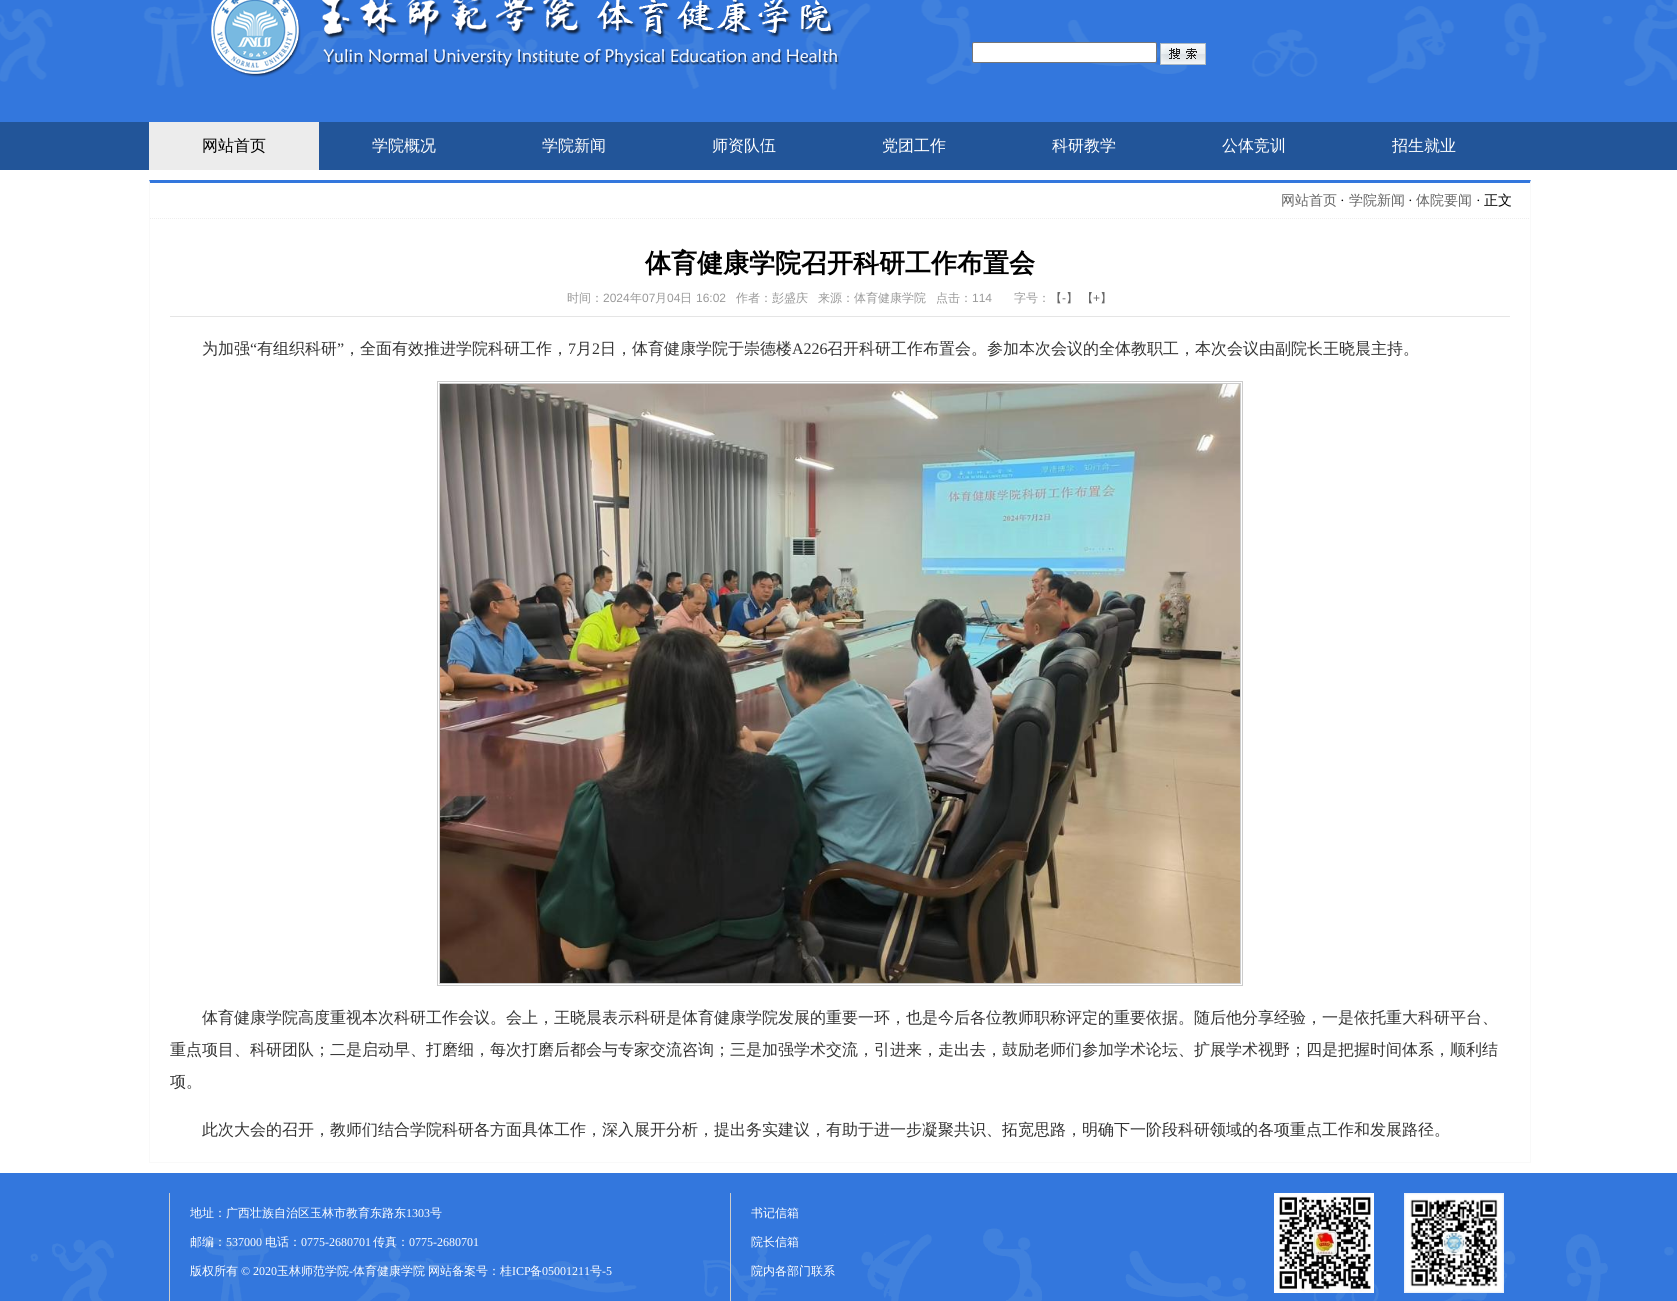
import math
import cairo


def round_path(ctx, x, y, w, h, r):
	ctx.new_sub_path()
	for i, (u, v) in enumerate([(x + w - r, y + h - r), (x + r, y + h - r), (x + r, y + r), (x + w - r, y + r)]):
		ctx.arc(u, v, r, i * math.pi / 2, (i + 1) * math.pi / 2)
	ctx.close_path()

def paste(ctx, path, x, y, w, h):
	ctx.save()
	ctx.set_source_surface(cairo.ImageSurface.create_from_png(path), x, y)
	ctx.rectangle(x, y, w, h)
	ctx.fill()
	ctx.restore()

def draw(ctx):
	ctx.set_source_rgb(1, 1, 1)
	ctx.paint()
	ctx.set_source_rgb(0.2, 0.467, 0.867)
	ctx.rectangle(0, 90, 1677, 32)
	ctx.fill()
	paste(ctx, 'media/1.png', 0, 0, 1677, 90)
	paste(ctx, 'media/2.png', 211, 0, 628, 77)
	ctx.set_source_rgb(1, 1, 1)
	round_path(ctx, 972.5, 42.5, 184, 20, 1.5)
	ctx.fill_preserve()
	ctx.set_source_rgb(0.463, 0.463, 0.463)
	ctx.set_line_width(1)
	ctx.stroke()
	paste(ctx, 'media/3.png', 1160, 43, 46, 22)
	ctx.set_source_rgb(0.133, 0.333, 0.6)
	ctx.rectangle(0, 122, 1677, 48)
	ctx.fill()
	ctx.set_source_rgb(0.922, 0.922, 0.922)
	ctx.rectangle(149, 122, 170, 48)
	ctx.fill()
	ctx.select_font_face('WenQuanYi Zen Hei Medium')
	ctx.set_font_size(16)
	ctx.set_source_rgb(0, 0, 0)
	ctx.move_to(202, 151)
	ctx.show_text('网站首页')
	ctx.set_source_rgb(1, 1, 1)
	for x, y, s in [
		(372, 151, '学院概况'),
		(542, 151, '学院新闻'),
		(712, 151, '师资队伍'),
		(882, 151, '党团工作'),
		(1052, 151, '科研教学'),
		(1222, 151, '公体竞训'),
		(1392, 151, '招生就业'),
	]:
		ctx.move_to(x, y)
		ctx.show_text(s)
	ctx.set_source_rgb(0.2, 0.467, 0.867)
	ctx.new_path()
	ctx.move_to(149, 180)
	ctx.line_to(1531, 180)
	ctx.line_to(1530, 183)
	ctx.line_to(150, 183)
	ctx.close_path()
	ctx.fill()
	ctx.set_source_rgb(0.973, 0.973, 0.973)
	ctx.new_path()
	ctx.move_to(1531, 180)
	ctx.line_to(1531, 1163)
	ctx.line_to(1530, 1162)
	ctx.line_to(1530, 183)
	ctx.close_path()
	ctx.fill()
	ctx.rectangle(149, 1162, 1382, 1)
	ctx.fill()
	ctx.new_path()
	ctx.move_to(149, 1163)
	ctx.line_to(149, 180)
	ctx.line_to(150, 183)
	ctx.line_to(150, 1162)
	ctx.close_path()
	ctx.fill()
	ctx.new_path()
	ctx.move_to(150, 218.5)
	ctx.line_to(1530, 218.5)
	ctx.set_source_rgb(0.933, 0.933, 0.933)
	ctx.set_dash([1, 1])
	ctx.stroke()
	ctx.set_font_size(14)
	ctx.set_source_rgb(0.4, 0.4, 0.4)
	ctx.move_to(1281, 205)
	ctx.show_text('网站首页')
	ctx.select_font_face('Liberation Serif')
	ctx.set_source_rgb(0, 0, 0)
	ctx.move_to(1340, 205)
	ctx.show_text('·')
	ctx.select_font_face('WenQuanYi Zen Hei Medium')
	ctx.set_source_rgb(0.4, 0.4, 0.4)
	ctx.move_to(1349, 205)
	ctx.show_text('学院新闻')
	ctx.select_font_face('Liberation Serif')
	ctx.set_source_rgb(0, 0, 0)
	ctx.move_to(1408, 205)
	ctx.show_text('·')
	ctx.select_font_face('WenQuanYi Zen Hei Medium')
	ctx.set_source_rgb(0.4, 0.4, 0.4)
	ctx.move_to(1416, 205)
	ctx.show_text('体院要闻')
	ctx.select_font_face('Liberation Serif')
	ctx.set_source_rgb(0, 0, 0)
	ctx.move_to(1476, 205)
	ctx.show_text('·')
	ctx.select_font_face('WenQuanYi Zen Hei Medium')
	ctx.move_to(1484, 205)
	ctx.show_text('正文')
	ctx.set_source_rgb(0.898, 0.898, 0.898)
	ctx.rectangle(170, 316, 1340, 1)
	ctx.fill()
	ctx.select_font_face('WenQuanYi Zen Hei', cairo.FONT_SLANT_NORMAL, cairo.FONT_WEIGHT_BOLD)
	ctx.set_font_size(26)
	ctx.set_source_rgb(0, 0, 0)
	ctx.move_to(645, 272)
	ctx.show_text('体育健康学院召开科研工作布置会')
	ctx.select_font_face('WenQuanYi Zen Hei Medium')
	ctx.set_font_size(12)
	ctx.set_source_rgb(0.6, 0.6, 0.6)
	ctx.move_to(567, 302)
	ctx.show_text('时间：')
	ctx.select_font_face('Liberation Sans')
	ctx.move_to(603, 302)
	ctx.show_text('2024')
	ctx.select_font_face('WenQuanYi Zen Hei Medium')
	ctx.move_to(630, 302)
	ctx.show_text('年')
	ctx.select_font_face('Liberation Sans')
	ctx.move_to(642, 302)
	ctx.show_text('07')
	ctx.select_font_face('WenQuanYi Zen Hei Medium')
	ctx.move_to(655, 302)
	ctx.show_text('月')
	ctx.select_font_face('Liberation Sans')
	ctx.move_to(667, 302)
	ctx.show_text('04')
	ctx.select_font_face('WenQuanYi Zen Hei Medium')
	ctx.move_to(680, 302)
	ctx.show_text('日')
	ctx.select_font_face('Liberation Sans')
	ctx.move_to(696, 302)
	ctx.show_text('16:02')
	ctx.select_font_face('WenQuanYi Zen Hei Medium')
	for x, y, s in [
		(736, 302, '作者：彭盛庆'),
		(818, 302, '来源：体育健康学院'),
		(936, 302, '点击：'),
	]:
		ctx.move_to(x, y)
		ctx.show_text(s)
	ctx.select_font_face('Liberation Sans')
	ctx.move_to(972, 302)
	ctx.show_text('114')
	ctx.select_font_face('WenQuanYi Zen Hei Medium')
	ctx.move_to(1014, 302)
	ctx.show_text('字号：')
	ctx.set_source_rgb(0.4, 0.4, 0.4)
	ctx.move_to(1050, 302)
	ctx.show_text('【')
	ctx.select_font_face('Liberation Sans')
	ctx.move_to(1062, 302)
	ctx.show_text('-')
	ctx.select_font_face('WenQuanYi Zen Hei Medium')
	ctx.move_to(1066, 302)
	ctx.show_text('】 【')
	ctx.select_font_face('Liberation Sans')
	ctx.move_to(1093, 302)
	ctx.show_text('+')
	ctx.select_font_face('WenQuanYi Zen Hei Medium')
	ctx.move_to(1100, 302)
	ctx.show_text('】')
	ctx.set_font_size(16)
	ctx.set_source_rgb(0.2, 0.2, 0.2)
	ctx.move_to(202, 354)
	ctx.show_text('为加强')
	ctx.select_font_face('Liberation Serif')
	ctx.move_to(250, 354)
	ctx.show_text('“')
	ctx.select_font_face('WenQuanYi Zen Hei Medium')
	ctx.move_to(257, 354)
	ctx.show_text('有组织科研')
	ctx.select_font_face('Liberation Serif')
	ctx.move_to(337, 354)
	ctx.show_text('”')
	ctx.select_font_face('WenQuanYi Zen Hei Medium')
	ctx.move_to(344, 354)
	ctx.show_text('，全面有效推进学院科研工作，')
	ctx.select_font_face('Liberation Serif')
	ctx.move_to(568, 354)
	ctx.show_text('7')
	ctx.select_font_face('WenQuanYi Zen Hei Medium')
	ctx.move_to(576, 354)
	ctx.show_text('月')
	ctx.select_font_face('Liberation Serif')
	ctx.move_to(592, 354)
	ctx.show_text('2')
	ctx.select_font_face('WenQuanYi Zen Hei Medium')
	ctx.move_to(600, 354)
	ctx.show_text('日，体育健康学院于崇德楼')
	ctx.select_font_face('Liberation Serif')
	ctx.move_to(792, 354)
	ctx.show_text('A226')
	ctx.select_font_face('WenQuanYi Zen Hei Medium')
	ctx.move_to(827, 354)
	ctx.show_text('召开科研工作布置会。参加本次会议的全体教职工，本次会议由副院长王晓晨主持。')
	ctx.rectangle(437.5, 381.5, 805, 604)
	ctx.set_source_rgb(0.8, 0.8, 0.8)
	ctx.set_dash([])
	ctx.stroke()
	ctx.rectangle(439.5, 383.5, 801, 600)
	ctx.stroke()
	paste(ctx, 'media/4.png', 440, 384, 800, 599)
	ctx.set_source_rgb(0.2, 0.2, 0.2)
	for x, y, s in [
		(202, 1023, '体育健康学院高度重视本次科研工作会议。会上，王晓晨表示科研是体育健康学院发展的重要一环，也是今后各位教师职称评定的重要依据。随后他分享经验，一是依托重大科研平台、'),
		(170, 1055, '重点项目、科研团队；二是启动早、打磨细，每次打磨后都会与专家交流咨询；三是加强学术交流，引进来，走出去，鼓励老师们参加学术论坛、扩展学术视野；四是把握时间体系，顺利结'),
		(170, 1087, '项。'),
		(202, 1135, '此次大会的召开，教师们结合学院科研各方面具体工作，深入展开分析，提出务实建议，有助于进一步凝聚共识、拓宽思路，明确下一阶段科研领域的各项重点工作和发展路径。'),
	]:
		ctx.move_to(x, y)
		ctx.show_text(s)
	ctx.set_source_rgb(0.2, 0.467, 0.867)
	ctx.rectangle(0, 1173, 1677, 128)
	ctx.fill()
	paste(ctx, 'media/5.png', 30, 1228, 1644, 73)
	ctx.set_source_rgb(0.8, 0.8, 0.8)
	ctx.rectangle(169, 1193, 1, 108)
	ctx.fill()
	ctx.set_font_size(12)
	ctx.set_source_rgb(1, 1, 1)
	ctx.move_to(190, 1217)
	ctx.show_text('地址：广西壮族自治区玉林市教育东路东')
	ctx.select_font_face('Liberation Serif')
	ctx.move_to(406, 1217)
	ctx.show_text('1303')
	ctx.select_font_face('WenQuanYi Zen Hei Medium')
	ctx.move_to(430, 1217)
	ctx.show_text('号')
	ctx.move_to(190, 1246)
	ctx.show_text('邮编：')
	ctx.select_font_face('Liberation Serif')
	ctx.move_to(226, 1246)
	ctx.show_text('537000')
	ctx.select_font_face('WenQuanYi Zen Hei Medium')
	ctx.move_to(265, 1246)
	ctx.show_text('电话：')
	ctx.select_font_face('Liberation Serif')
	ctx.move_to(301, 1246)
	ctx.show_text('0775-2680701')
	ctx.select_font_face('WenQuanYi Zen Hei Medium')
	ctx.move_to(373, 1246)
	ctx.show_text('传真：')
	ctx.select_font_face('Liberation Serif')
	ctx.move_to(409, 1246)
	ctx.show_text('0775-2680701')
	ctx.select_font_face('WenQuanYi Zen Hei Medium')
	ctx.move_to(190, 1275)
	ctx.show_text('版权所有')
	ctx.select_font_face('Liberation Serif')
	ctx.move_to(241, 1275)
	ctx.show_text('© 2020')
	ctx.select_font_face('WenQuanYi Zen Hei Medium')
	ctx.move_to(277, 1275)
	ctx.show_text('玉林师范学院')
	ctx.select_font_face('Liberation Serif')
	ctx.move_to(349, 1275)
	ctx.show_text('-')
	ctx.select_font_face('WenQuanYi Zen Hei Medium')
	ctx.move_to(353, 1275)
	ctx.show_text('体育健康学院')
	ctx.move_to(428, 1275)
	ctx.show_text('网站备案号：桂')
	ctx.select_font_face('Liberation Serif')
	ctx.move_to(512, 1275)
	ctx.show_text('ICP')
	ctx.select_font_face('WenQuanYi Zen Hei Medium')
	ctx.move_to(530, 1275)
	ctx.show_text('备')
	ctx.select_font_face('Liberation Serif')
	ctx.move_to(542, 1275)
	ctx.show_text('05001211')
	ctx.select_font_face('WenQuanYi Zen Hei Medium')
	ctx.move_to(590, 1275)
	ctx.show_text('号')
	ctx.select_font_face('Liberation Serif')
	ctx.move_to(602, 1275)
	ctx.show_text('-5')
	ctx.set_source_rgb(0.8, 0.8, 0.8)
	ctx.rectangle(730, 1193, 1, 108)
	ctx.fill()
	ctx.select_font_face('WenQuanYi Zen Hei Medium')
	ctx.set_source_rgb(1, 1, 1)
	for x, y, s in [
		(751, 1217, '书记信箱'),
		(751, 1246, '院长信箱'),
		(751, 1275, '院内各部门联系'),
	]:
		ctx.move_to(x, y)
		ctx.show_text(s)
	paste(ctx, 'media/6.png', 1274, 1193, 100, 100)
	paste(ctx, 'media/7.png', 1404, 1193, 100, 100)


surface = cairo.ImageSurface(cairo.FORMAT_RGB24, 1677, 1301)
ctx = cairo.Context(surface)
options = cairo.FontOptions()
options.set_hint_metrics(cairo.HINT_METRICS_OFF)
options.set_hint_style(cairo.HINT_STYLE_NONE)
ctx.set_font_options(options)
ctx.set_miter_limit(4)
draw(ctx)
surface.write_to_png('image.png')
